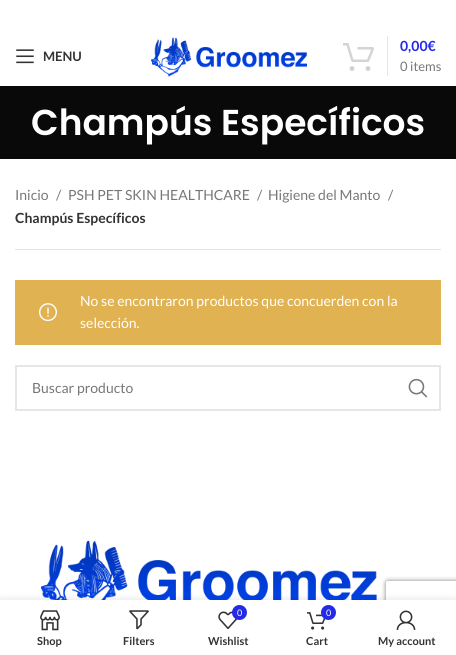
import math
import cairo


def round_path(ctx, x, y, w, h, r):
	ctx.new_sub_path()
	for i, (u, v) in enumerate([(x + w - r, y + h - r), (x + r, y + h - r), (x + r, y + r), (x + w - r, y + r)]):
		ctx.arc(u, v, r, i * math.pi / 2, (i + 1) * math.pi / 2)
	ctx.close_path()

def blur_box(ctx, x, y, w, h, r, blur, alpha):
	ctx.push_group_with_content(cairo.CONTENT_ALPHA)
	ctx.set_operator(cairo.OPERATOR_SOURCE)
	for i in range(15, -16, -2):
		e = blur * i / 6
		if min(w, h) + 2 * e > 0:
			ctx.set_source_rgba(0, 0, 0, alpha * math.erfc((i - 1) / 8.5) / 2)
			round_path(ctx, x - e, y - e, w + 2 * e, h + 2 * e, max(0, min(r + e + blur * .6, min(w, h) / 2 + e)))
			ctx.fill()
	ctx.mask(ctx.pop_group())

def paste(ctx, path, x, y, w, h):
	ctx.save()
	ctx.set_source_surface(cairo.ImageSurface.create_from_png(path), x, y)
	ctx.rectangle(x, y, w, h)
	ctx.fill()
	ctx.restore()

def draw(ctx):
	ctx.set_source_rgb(1, 1, 1)
	ctx.paint()
	paste(ctx, 'media/1.png', 16, 49, 18, 15)
	ctx.select_font_face('Lato', cairo.FONT_SLANT_NORMAL, cairo.FONT_WEIGHT_BOLD)
	ctx.set_font_size(13)
	ctx.set_source_rgb(0.2, 0.2, 0.2)
	ctx.move_to(43, 61)
	ctx.show_text('MENU')
	paste(ctx, 'media/2.png', 151, 37, 156, 40)
	paste(ctx, 'media/3.png', 343, 43, 31, 28)
	ctx.set_source_rgb(0.902, 0.902, 0.902)
	ctx.rectangle(387, 36, 1, 40)
	ctx.fill()
	ctx.set_font_size(14)
	ctx.set_source_rgb(0.141, 0.169, 0.898)
	ctx.move_to(400, 51)
	ctx.show_text('0,00€')
	ctx.select_font_face('Lato')
	ctx.set_font_size(13)
	ctx.set_source_rgb(0.467, 0.467, 0.467)
	ctx.move_to(400, 71)
	ctx.show_text('0 items')
	ctx.set_source_rgb(0.039, 0.039, 0.039)
	ctx.rectangle(0, 86, 456, 73)
	ctx.fill()
	ctx.select_font_face('Poppins SemiBold')
	ctx.set_font_size(36)
	ctx.set_source_rgb(1, 1, 1)
	ctx.move_to(31, 135)
	ctx.show_text('Champús Específicos')
	ctx.set_source_rgb(0.894, 0.894, 0.894)
	ctx.rectangle(15, 249, 426, 1)
	ctx.fill()
	ctx.select_font_face('Lato')
	ctx.set_font_size(14)
	ctx.set_source_rgb(0.467, 0.467, 0.467)
	for x, y, s in [
		(15, 200, 'Inicio'),
		(56, 200, '/'),
		(68, 200, 'PSH PET SKIN HEALTHCARE'),
		(257, 200, '/'),
		(268, 200, 'Higiene del Manto'),
		(388, 200, '/'),
	]:
		ctx.move_to(x, y)
		ctx.show_text(s)
	ctx.select_font_face('Lato', cairo.FONT_SLANT_NORMAL, cairo.FONT_WEIGHT_BOLD)
	ctx.set_source_rgb(0.2, 0.2, 0.2)
	ctx.move_to(15, 223)
	ctx.show_text('Champús Específicos')
	ctx.set_source_rgb(0.878, 0.698, 0.322)
	ctx.rectangle(15, 280, 426, 65)
	ctx.fill()
	paste(ctx, 'media/4.png', 39, 303, 18, 19)
	ctx.select_font_face('Lato')
	ctx.set_source_rgb(1, 1, 1)
	ctx.move_to(80, 306)
	ctx.show_text('No se encontraron productos que concuerden con la')
	ctx.move_to(80, 328)
	ctx.show_text('selección.')
	ctx.rectangle(16, 366, 424, 44)
	ctx.set_source_rgb(0.902, 0.902, 0.902)
	ctx.stroke()
	ctx.set_source_rgb(0.467, 0.467, 0.467)
	ctx.move_to(32, 393)
	ctx.show_text('Buscar producto')
	paste(ctx, 'media/5.png', 408, 378, 20, 20)
	paste(ctx, 'media/6.png', 40, 540, 337, 60)
	ctx.save()
	ctx.set_fill_rule(cairo.FILL_RULE_EVEN_ODD)
	ctx.new_path()
	ctx.move_to(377, 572)
	ctx.line_to(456, 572)
	ctx.line_to(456, 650)
	ctx.line_to(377, 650)
	ctx.close_path()
	ctx.move_to(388, 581)
	ctx.line_to(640, 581)
	ctx.curve_to(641, 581, 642, 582, 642, 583)
	ctx.line_to(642, 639)
	ctx.curve_to(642, 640, 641, 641, 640, 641)
	ctx.line_to(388, 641)
	ctx.curve_to(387, 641, 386, 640, 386, 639)
	ctx.line_to(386, 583)
	ctx.curve_to(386, 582, 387, 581, 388, 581)
	ctx.close_path()
	ctx.clip()
	ctx.set_source_rgb(0.502, 0.502, 0.502)
	blur_box(ctx, 386, 581, 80, 60, 2, 2.5, 1)
	ctx.restore()
	ctx.set_source_rgb(0, 0, 0)
	blur_box(ctx, 0, 600, 456, 55, 0, 4.5, 0.12)
	ctx.set_source_rgb(1, 1, 1)
	ctx.rectangle(0, 600, 456, 55)
	ctx.fill()
	paste(ctx, 'media/7.png', 40, 610, 20, 21)
	ctx.select_font_face('Lato', cairo.FONT_SLANT_NORMAL, cairo.FONT_WEIGHT_BOLD)
	ctx.set_font_size(11)
	ctx.set_source_rgb(0.2, 0.2, 0.2)
	ctx.move_to(37, 645)
	ctx.show_text('Shop')
	paste(ctx, 'media/8.png', 129, 610, 20, 20)
	ctx.move_to(123, 645)
	ctx.show_text('Filters')
	paste(ctx, 'media/9.png', 218, 611, 20, 18)
	ctx.set_source_rgb(0.141, 0.169, 0.898)
	ctx.arc(239.5, 612.5, 7.5, 0, 2 * math.pi)
	ctx.fill()
	ctx.select_font_face('Lato')
	ctx.set_font_size(9)
	ctx.set_source_rgb(1, 1, 1)
	ctx.move_to(237, 616)
	ctx.show_text('0')
	ctx.select_font_face('Lato', cairo.FONT_SLANT_NORMAL, cairo.FONT_WEIGHT_BOLD)
	ctx.set_font_size(11)
	ctx.set_source_rgb(0.2, 0.2, 0.2)
	ctx.move_to(208, 645)
	ctx.show_text('Wishlist')
	paste(ctx, 'media/10.png', 307, 612, 19, 18)
	ctx.set_source_rgb(0.141, 0.169, 0.898)
	ctx.arc(328.5, 612.5, 7.5, 0, 2 * math.pi)
	ctx.fill()
	ctx.select_font_face('Lato')
	ctx.set_font_size(9)
	ctx.set_source_rgb(1, 1, 1)
	ctx.move_to(326, 616)
	ctx.show_text('0')
	ctx.select_font_face('Lato', cairo.FONT_SLANT_NORMAL, cairo.FONT_WEIGHT_BOLD)
	ctx.set_font_size(11)
	ctx.set_source_rgb(0.2, 0.2, 0.2)
	ctx.move_to(306, 645)
	ctx.show_text('Cart')
	paste(ctx, 'media/11.png', 396, 610, 20, 20)
	ctx.move_to(378, 645)
	ctx.show_text('My account')


surface = cairo.ImageSurface(cairo.FORMAT_RGB24, 456, 655)
ctx = cairo.Context(surface)
options = cairo.FontOptions()
options.set_hint_metrics(cairo.HINT_METRICS_OFF)
options.set_hint_style(cairo.HINT_STYLE_NONE)
ctx.set_font_options(options)
ctx.set_miter_limit(4)
draw(ctx)
surface.write_to_png('image.png')
